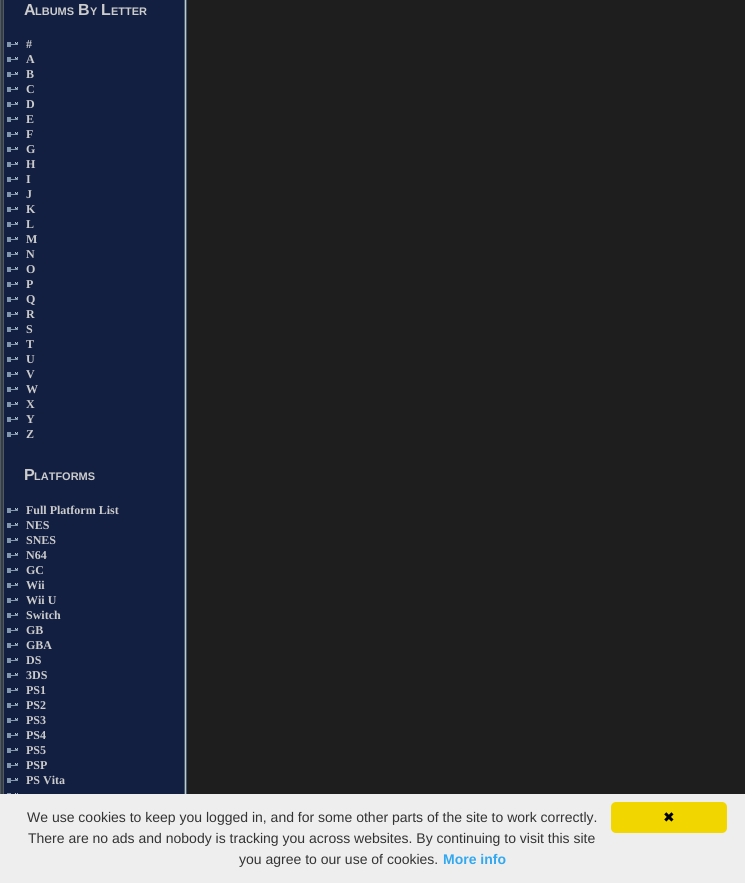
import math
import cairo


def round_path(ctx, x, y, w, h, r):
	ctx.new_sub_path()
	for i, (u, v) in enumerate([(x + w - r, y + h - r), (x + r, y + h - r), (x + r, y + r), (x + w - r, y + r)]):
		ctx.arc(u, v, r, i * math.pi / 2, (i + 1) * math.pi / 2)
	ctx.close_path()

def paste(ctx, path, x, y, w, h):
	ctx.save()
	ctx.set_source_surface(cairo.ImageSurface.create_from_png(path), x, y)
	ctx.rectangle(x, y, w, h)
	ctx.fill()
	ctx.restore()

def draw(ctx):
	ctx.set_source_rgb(0.235, 0.235, 0.235)
	ctx.paint()
	ctx.set_source_rgb(0.294, 0.357, 0.431)
	ctx.rectangle(0, 0, 1, 794)
	ctx.fill()
	ctx.set_source_rgb(0.071, 0.122, 0.255)
	ctx.rectangle(4, 0, 180, 794)
	ctx.fill()
	ctx.set_source_rgb(0.294, 0.357, 0.431)
	ctx.rectangle(184, 0, 1, 794)
	ctx.rectangle(3, 0, 1, 794)
	ctx.fill()
	ctx.select_font_face('Liberation Sans', cairo.FONT_SLANT_NORMAL, cairo.FONT_WEIGHT_BOLD)
	ctx.set_font_size(16)
	ctx.set_source_rgb(0.8, 0.8, 0.8)
	ctx.move_to(24, 15)
	ctx.show_text('A')
	ctx.set_font_size(11)
	ctx.move_to(35, 15)
	ctx.show_text('LBUMS')
	ctx.set_font_size(16)
	ctx.move_to(78, 15)
	ctx.show_text('B')
	ctx.set_font_size(11)
	ctx.move_to(90, 15)
	ctx.show_text('Y')
	ctx.set_font_size(16)
	ctx.move_to(101, 15)
	ctx.show_text('L')
	ctx.set_font_size(11)
	ctx.move_to(111, 15)
	ctx.show_text('ETTER')
	paste(ctx, 'media/1.png', 7, 42, 11, 5)
	ctx.select_font_face('Liberation Serif', cairo.FONT_SLANT_NORMAL, cairo.FONT_WEIGHT_BOLD)
	ctx.set_font_size(12)
	ctx.move_to(26, 48)
	ctx.show_text('#')
	paste(ctx, 'media/1.png', 7, 57, 11, 5)
	ctx.move_to(26, 63)
	ctx.show_text('A')
	paste(ctx, 'media/1.png', 7, 72, 11, 5)
	ctx.move_to(26, 78)
	ctx.show_text('B')
	paste(ctx, 'media/1.png', 7, 87, 11, 5)
	ctx.move_to(26, 93)
	ctx.show_text('C')
	paste(ctx, 'media/1.png', 7, 102, 11, 5)
	ctx.move_to(26, 108)
	ctx.show_text('D')
	paste(ctx, 'media/1.png', 7, 117, 11, 5)
	ctx.move_to(26, 123)
	ctx.show_text('E')
	paste(ctx, 'media/1.png', 7, 132, 11, 5)
	ctx.move_to(26, 138)
	ctx.show_text('F')
	paste(ctx, 'media/1.png', 7, 147, 11, 5)
	ctx.move_to(26, 153)
	ctx.show_text('G')
	paste(ctx, 'media/1.png', 7, 162, 11, 5)
	ctx.move_to(26, 168)
	ctx.show_text('H')
	paste(ctx, 'media/1.png', 7, 177, 11, 5)
	ctx.move_to(26, 183)
	ctx.show_text('I')
	paste(ctx, 'media/1.png', 7, 192, 11, 5)
	ctx.move_to(26, 198)
	ctx.show_text('J')
	paste(ctx, 'media/1.png', 7, 207, 11, 5)
	ctx.move_to(26, 213)
	ctx.show_text('K')
	paste(ctx, 'media/1.png', 7, 222, 11, 5)
	ctx.move_to(26, 228)
	ctx.show_text('L')
	paste(ctx, 'media/1.png', 7, 237, 11, 5)
	ctx.move_to(26, 243)
	ctx.show_text('M')
	paste(ctx, 'media/1.png', 7, 252, 11, 5)
	ctx.move_to(26, 258)
	ctx.show_text('N')
	paste(ctx, 'media/1.png', 7, 267, 11, 5)
	ctx.move_to(26, 273)
	ctx.show_text('O')
	paste(ctx, 'media/1.png', 7, 282, 11, 5)
	ctx.move_to(26, 288)
	ctx.show_text('P')
	paste(ctx, 'media/1.png', 7, 297, 11, 5)
	ctx.move_to(26, 303)
	ctx.show_text('Q')
	paste(ctx, 'media/1.png', 7, 312, 11, 5)
	ctx.move_to(26, 318)
	ctx.show_text('R')
	paste(ctx, 'media/1.png', 7, 327, 11, 5)
	ctx.move_to(26, 333)
	ctx.show_text('S')
	paste(ctx, 'media/1.png', 7, 342, 11, 5)
	ctx.move_to(26, 348)
	ctx.show_text('T')
	paste(ctx, 'media/1.png', 7, 357, 11, 5)
	ctx.move_to(26, 363)
	ctx.show_text('U')
	paste(ctx, 'media/1.png', 7, 372, 11, 5)
	ctx.move_to(26, 378)
	ctx.show_text('V')
	paste(ctx, 'media/1.png', 7, 387, 11, 5)
	ctx.move_to(26, 393)
	ctx.show_text('W')
	paste(ctx, 'media/1.png', 7, 402, 11, 5)
	ctx.move_to(26, 408)
	ctx.show_text('X')
	paste(ctx, 'media/1.png', 7, 417, 11, 5)
	ctx.move_to(26, 423)
	ctx.show_text('Y')
	paste(ctx, 'media/1.png', 7, 432, 11, 5)
	ctx.move_to(26, 438)
	ctx.show_text('Z')
	ctx.select_font_face('Liberation Sans', cairo.FONT_SLANT_NORMAL, cairo.FONT_WEIGHT_BOLD)
	ctx.set_font_size(16)
	ctx.move_to(24, 480)
	ctx.show_text('P')
	ctx.set_font_size(11)
	ctx.move_to(34, 480)
	ctx.show_text('LATFORMS')
	paste(ctx, 'media/1.png', 7, 508, 11, 5)
	ctx.select_font_face('Liberation Serif', cairo.FONT_SLANT_NORMAL, cairo.FONT_WEIGHT_BOLD)
	ctx.set_font_size(12)
	ctx.move_to(26, 514)
	ctx.show_text('Full Platform List')
	paste(ctx, 'media/1.png', 7, 523, 11, 5)
	ctx.move_to(26, 529)
	ctx.show_text('NES')
	paste(ctx, 'media/1.png', 7, 538, 11, 5)
	ctx.move_to(26, 544)
	ctx.show_text('SNES')
	paste(ctx, 'media/1.png', 7, 553, 11, 5)
	ctx.move_to(26, 559)
	ctx.show_text('N64')
	paste(ctx, 'media/1.png', 7, 568, 11, 5)
	ctx.move_to(26, 574)
	ctx.show_text('GC')
	paste(ctx, 'media/1.png', 7, 583, 11, 5)
	ctx.move_to(26, 589)
	ctx.show_text('Wii')
	paste(ctx, 'media/1.png', 7, 598, 11, 5)
	ctx.move_to(26, 604)
	ctx.show_text('Wii U')
	paste(ctx, 'media/1.png', 7, 613, 11, 5)
	ctx.move_to(26, 619)
	ctx.show_text('Switch')
	paste(ctx, 'media/1.png', 7, 628, 11, 5)
	ctx.move_to(26, 634)
	ctx.show_text('GB')
	paste(ctx, 'media/1.png', 7, 643, 11, 5)
	ctx.move_to(26, 649)
	ctx.show_text('GBA')
	paste(ctx, 'media/1.png', 7, 658, 11, 5)
	ctx.move_to(26, 664)
	ctx.show_text('DS')
	paste(ctx, 'media/1.png', 7, 673, 11, 5)
	ctx.move_to(26, 679)
	ctx.show_text('3DS')
	paste(ctx, 'media/1.png', 7, 688, 11, 5)
	ctx.move_to(26, 694)
	ctx.show_text('PS1')
	paste(ctx, 'media/1.png', 7, 703, 11, 5)
	ctx.move_to(26, 709)
	ctx.show_text('PS2')
	paste(ctx, 'media/1.png', 7, 718, 11, 5)
	ctx.move_to(26, 724)
	ctx.show_text('PS3')
	paste(ctx, 'media/1.png', 7, 733, 11, 5)
	ctx.move_to(26, 739)
	ctx.show_text('PS4')
	paste(ctx, 'media/1.png', 7, 748, 11, 5)
	ctx.move_to(26, 754)
	ctx.show_text('PS5')
	paste(ctx, 'media/1.png', 7, 763, 11, 5)
	ctx.move_to(26, 769)
	ctx.show_text('PSP')
	paste(ctx, 'media/1.png', 7, 778, 11, 5)
	ctx.move_to(26, 784)
	ctx.show_text('PS Vita')
	paste(ctx, 'media/2.png', 7, 793, 11, 1)
	ctx.set_source_rgb(0.737, 0.796, 0.824)
	ctx.rectangle(185, 0, 1, 794)
	ctx.fill()
	ctx.set_source_rgb(0.118, 0.118, 0.118)
	ctx.rectangle(187, 0, 558, 794)
	ctx.fill()
	ctx.set_source_rgb(0.294, 0.357, 0.431)
	ctx.rectangle(186, 0, 1, 794)
	ctx.fill()
	ctx.set_source_rgb(0.933, 0.933, 0.933)
	ctx.rectangle(0, 794, 745, 89)
	ctx.fill()
	ctx.select_font_face('Liberation Sans')
	ctx.set_font_size(14)
	ctx.set_source_rgb(0.2, 0.2, 0.2)
	for x, y, s in [
		(27, 822, 'We use cookies to keep you logged in, and for some other parts of the site to work correctly.'),
		(28, 843, 'There are no ads and nobody is tracking you across websites. By continuing to visit this site'),
		(239, 864, 'you agree to our use of cookies.'),
	]:
		ctx.move_to(x, y)
		ctx.show_text(s)
	ctx.select_font_face('Liberation Sans', cairo.FONT_SLANT_NORMAL, cairo.FONT_WEIGHT_BOLD)
	ctx.set_source_rgb(0.192, 0.659, 0.941)
	ctx.move_to(443, 864)
	ctx.show_text('More info')
	ctx.set_source_rgb(0.945, 0.839, 0)
	round_path(ctx, 611, 802, 116, 31, 5)
	ctx.fill()
	ctx.select_font_face('DejaVu Sans')
	ctx.set_source_rgb(0, 0, 0)
	ctx.move_to(663, 822)
	ctx.show_text('✖')


surface = cairo.ImageSurface(cairo.FORMAT_RGB24, 745, 883)
ctx = cairo.Context(surface)
options = cairo.FontOptions()
options.set_hint_metrics(cairo.HINT_METRICS_OFF)
options.set_hint_style(cairo.HINT_STYLE_NONE)
ctx.set_font_options(options)
ctx.set_miter_limit(4)
draw(ctx)
surface.write_to_png('image.png')
